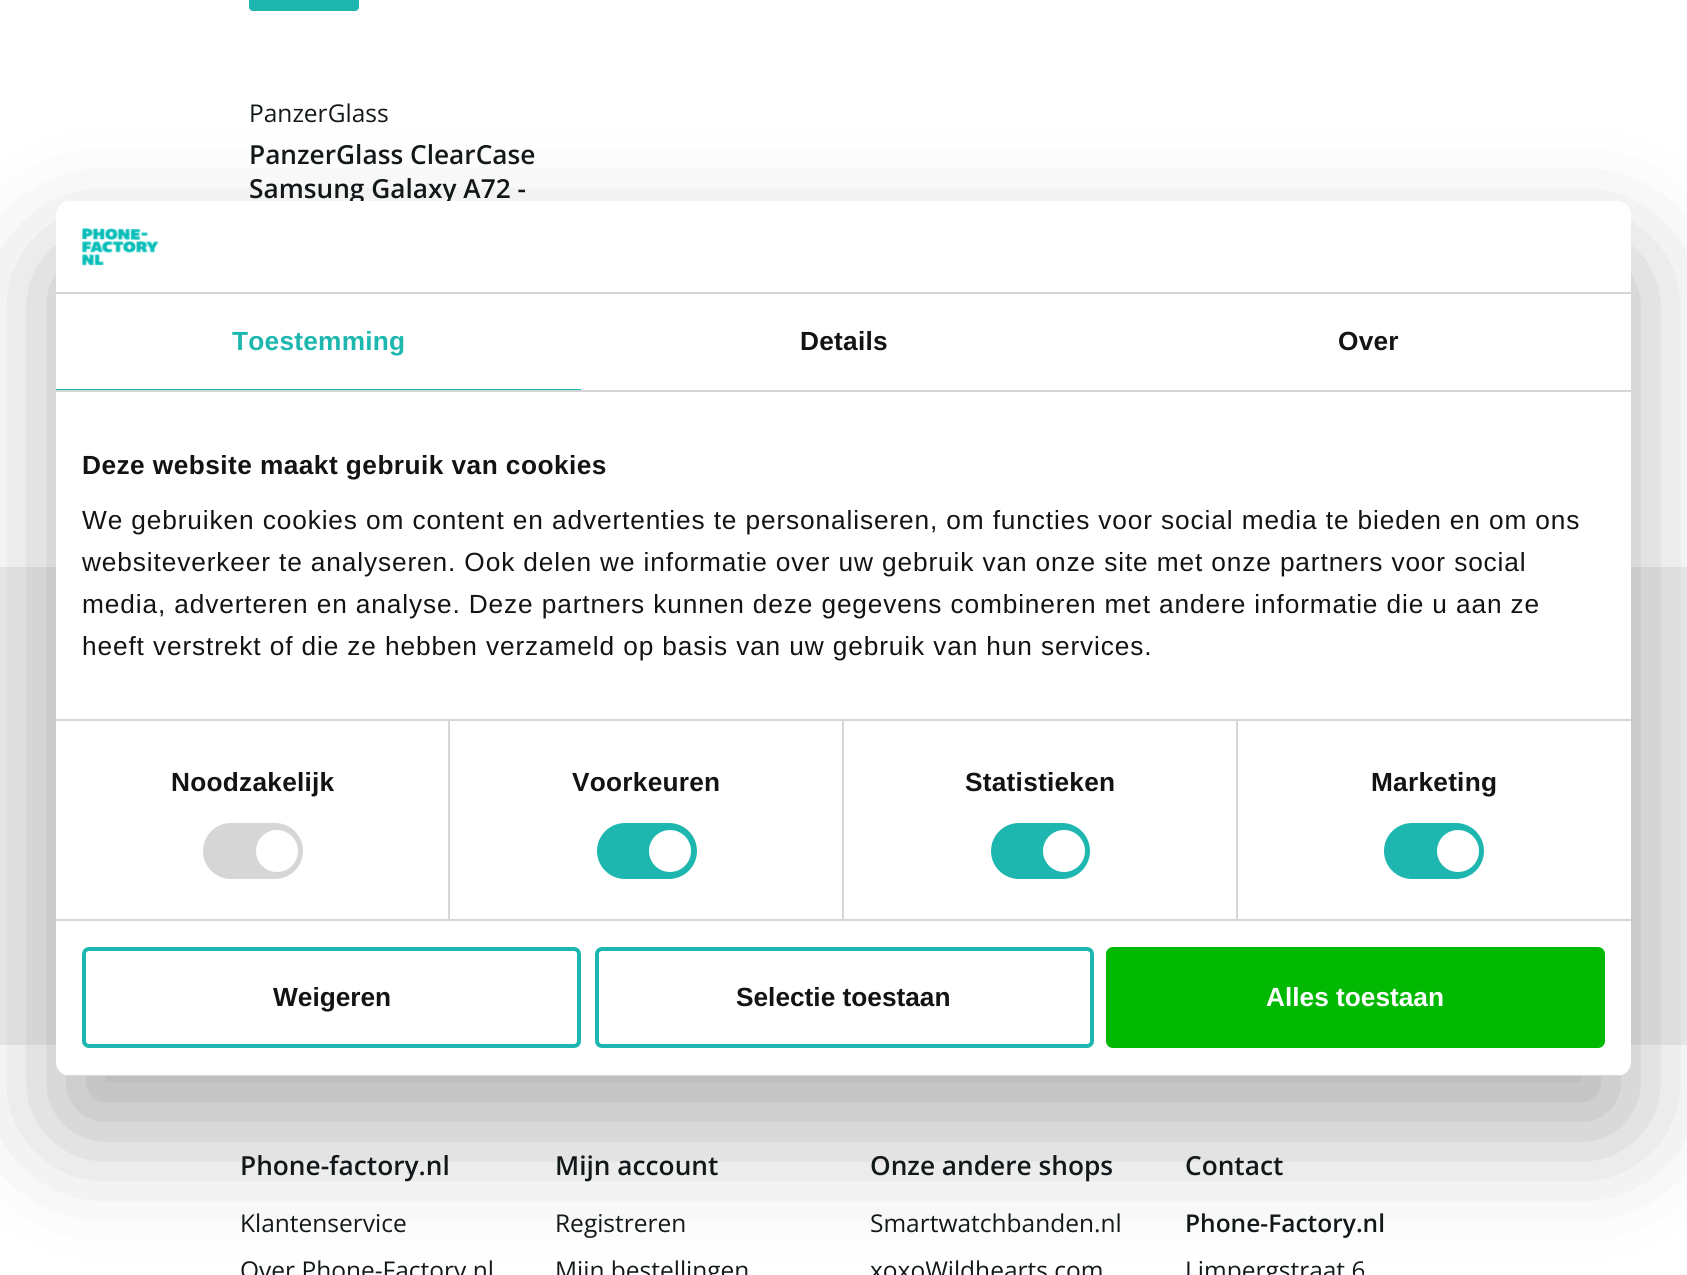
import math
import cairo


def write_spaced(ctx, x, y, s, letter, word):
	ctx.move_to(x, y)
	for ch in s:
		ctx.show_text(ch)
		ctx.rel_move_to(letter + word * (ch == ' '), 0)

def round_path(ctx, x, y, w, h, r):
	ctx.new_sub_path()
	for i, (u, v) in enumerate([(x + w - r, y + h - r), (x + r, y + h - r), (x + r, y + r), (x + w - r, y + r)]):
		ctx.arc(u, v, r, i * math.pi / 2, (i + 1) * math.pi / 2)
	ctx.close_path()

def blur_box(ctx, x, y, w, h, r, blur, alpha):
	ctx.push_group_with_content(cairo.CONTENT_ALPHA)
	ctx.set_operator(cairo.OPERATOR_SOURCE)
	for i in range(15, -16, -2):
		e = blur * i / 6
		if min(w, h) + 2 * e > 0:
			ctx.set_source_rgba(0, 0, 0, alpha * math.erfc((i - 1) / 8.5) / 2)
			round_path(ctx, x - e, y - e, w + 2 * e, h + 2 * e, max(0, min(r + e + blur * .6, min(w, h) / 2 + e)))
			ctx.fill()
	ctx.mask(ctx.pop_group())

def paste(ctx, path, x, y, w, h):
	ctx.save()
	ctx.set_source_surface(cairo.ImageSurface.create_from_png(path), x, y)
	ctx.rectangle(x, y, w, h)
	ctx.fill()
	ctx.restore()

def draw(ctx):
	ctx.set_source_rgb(1, 1, 1)
	ctx.paint()
	ctx.set_source_rgb(0.114, 0.718, 0.69)
	round_path(ctx, 249, -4, 110, 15, 4)
	ctx.fill()
	ctx.select_font_face('Open Sans')
	ctx.set_font_size(24.5)
	ctx.set_source_rgb(0.075, 0.098, 0.106)
	ctx.move_to(249, 122)
	ctx.show_text('PanzerGlass')
	ctx.select_font_face('Open Sans SemiBold')
	ctx.set_font_size(26.25)
	ctx.move_to(249, 164)
	ctx.show_text('PanzerGlass ClearCase')
	ctx.move_to(249, 198)
	ctx.show_text('Samsung Galaxy A72 -')
	ctx.set_source_rgb(0.937, 0.937, 0.937)
	ctx.rectangle(0, 567, 1687, 478)
	ctx.fill()
	ctx.set_source_rgb(0, 0, 0)
	blur_box(ctx, 56, 257, 1575, 875, 14, 59.5, 0.3)
	ctx.set_source_rgb(1, 1, 1)
	round_path(ctx, 56, 201, 1575, 875, 14)
	ctx.fill()
	ctx.set_source_rgb(0.839, 0.839, 0.839)
	ctx.rectangle(56, 292, 1575, 2)
	ctx.fill()
	paste(ctx, 'media/1.png', 82, 228, 77, 38)
	ctx.rectangle(56, 390, 1575, 2)
	ctx.fill()
	ctx.set_source_rgb(0.114, 0.718, 0.69)
	ctx.rectangle(56, 389, 525, 1)
	ctx.fill()
	ctx.select_font_face('Liberation Sans', cairo.FONT_SLANT_NORMAL, cairo.FONT_WEIGHT_BOLD)
	write_spaced(ctx, 232, 350, 'Toestemming', 0.25, 0)
	ctx.set_source_rgb(0.078, 0.078, 0.078)
	write_spaced(ctx, 800, 350, 'Details', 0.25, 0)
	write_spaced(ctx, 1338, 350, 'Over', 0.25, 0)
	ctx.set_source_rgb(0.839, 0.839, 0.839)
	ctx.rectangle(56, 719, 1575, 2)
	ctx.fill()
	ctx.set_source_rgb(0.078, 0.078, 0.078)
	write_spaced(ctx, 82, 474, 'Deze website maakt gebruik van cookies', 0.45, 0)
	ctx.select_font_face('Liberation Sans')
	for x, y, s in [
		(82, 529, 'We gebruiken cookies om content en advertenties te personaliseren, om functies voor social media te bieden en om ons'),
		(82, 571, 'websiteverkeer te analyseren. Ook delen we informatie over uw gebruik van onze site met onze partners voor social'),
		(82, 613, 'media, adverteren en analyse. Deze partners kunnen deze gegevens combineren met andere informatie die u aan ze'),
		(82, 655, 'heeft verstrekt of die ze hebben verzameld op basis van uw gebruik van hun services.'),
	]:
		write_spaced(ctx, x, y, s, 0.88, 0)
	ctx.set_source_rgb(0.839, 0.839, 0.839)
	ctx.rectangle(56, 919, 1575, 2)
	ctx.fill()
	ctx.rectangle(448, 721, 2, 198)
	ctx.fill()
	ctx.select_font_face('Liberation Sans', cairo.FONT_SLANT_NORMAL, cairo.FONT_WEIGHT_BOLD)
	ctx.set_source_rgb(0.078, 0.078, 0.078)
	write_spaced(ctx, 171, 791, 'Noodzakelijk', 0.25, 0)
	ctx.set_source_rgb(0.839, 0.839, 0.839)
	round_path(ctx, 203, 823, 100, 56, 28)
	ctx.fill()
	ctx.set_source_rgb(1, 1, 1)
	ctx.arc(277, 851, 21, 0, 2 * math.pi)
	ctx.fill()
	ctx.set_source_rgb(0.839, 0.839, 0.839)
	ctx.rectangle(842, 721, 2, 198)
	ctx.fill()
	ctx.set_source_rgb(0.078, 0.078, 0.078)
	write_spaced(ctx, 572, 791, 'Voorkeuren', 0.25, 0)
	ctx.set_source_rgb(0.114, 0.718, 0.69)
	round_path(ctx, 597, 823, 100, 56, 28)
	ctx.fill()
	ctx.set_source_rgb(1, 1, 1)
	ctx.arc(670, 851, 21, 0, 2 * math.pi)
	ctx.fill()
	ctx.set_source_rgb(0.839, 0.839, 0.839)
	ctx.rectangle(1236, 721, 2, 198)
	ctx.fill()
	ctx.set_source_rgb(0.078, 0.078, 0.078)
	write_spaced(ctx, 965, 791, 'Statistieken', 0.25, 0)
	ctx.set_source_rgb(0.114, 0.718, 0.69)
	round_path(ctx, 991, 823, 99, 56, 28)
	ctx.fill()
	ctx.set_source_rgb(1, 1, 1)
	ctx.arc(1064, 851, 21, 0, 2 * math.pi)
	ctx.fill()
	ctx.set_source_rgb(0.078, 0.078, 0.078)
	write_spaced(ctx, 1371, 791, 'Marketing', 0.25, 0)
	ctx.set_source_rgb(0.114, 0.718, 0.69)
	round_path(ctx, 1384, 823, 100, 56, 28)
	ctx.fill()
	ctx.set_source_rgb(1, 1, 1)
	ctx.arc(1458, 851, 21, 0, 2 * math.pi)
	ctx.fill()
	ctx.save()
	round_path(ctx, 56, 201, 1575, 875, 14)
	ctx.clip()
	ctx.set_source_rgb(0.839, 0.839, 0.839)
	ctx.rectangle(65, 1075, 1557, 1)
	ctx.fill()
	ctx.restore()
	round_path(ctx, 84, 949, 495, 97, 5)
	ctx.set_source_rgb(0.114, 0.718, 0.69)
	ctx.set_line_width(4)
	ctx.stroke()
	ctx.set_source_rgb(0.078, 0.078, 0.078)
	ctx.move_to(273, 1006)
	ctx.show_text('Weigeren')
	round_path(ctx, 597, 949, 495, 97, 5)
	ctx.set_source_rgb(0.114, 0.718, 0.69)
	ctx.stroke()
	ctx.set_source_rgb(0.078, 0.078, 0.078)
	ctx.move_to(736, 1006)
	ctx.show_text('Selectie toestaan')
	ctx.set_source_rgb(0, 0.725, 0)
	round_path(ctx, 1108, 949, 495, 97, 5)
	ctx.fill_preserve()
	ctx.stroke()
	ctx.set_source_rgb(1, 1, 1)
	ctx.move_to(1266, 1006)
	ctx.show_text('Alles toestaan')
	ctx.select_font_face('Open Sans SemiBold')
	ctx.set_source_rgb(0.075, 0.098, 0.106)
	ctx.move_to(240, 1175)
	ctx.show_text('Phone-factory.nl')
	ctx.select_font_face('Open Sans')
	ctx.set_font_size(24.5)
	ctx.move_to(240, 1232)
	ctx.show_text('Klantenservice')
	ctx.move_to(240, 1279)
	ctx.show_text('Over Phone-Factory.nl')
	ctx.select_font_face('Open Sans SemiBold')
	ctx.set_font_size(26.25)
	ctx.move_to(555, 1175)
	ctx.show_text('Mijn account')
	ctx.select_font_face('Open Sans')
	ctx.set_font_size(24.5)
	ctx.move_to(555, 1232)
	ctx.show_text('Registreren')
	ctx.move_to(555, 1279)
	ctx.show_text('Mijn bestellingen')
	ctx.select_font_face('Open Sans SemiBold')
	ctx.set_font_size(26.25)
	ctx.move_to(870, 1175)
	ctx.show_text('Onze andere shops')
	ctx.select_font_face('Open Sans')
	ctx.set_font_size(24.5)
	ctx.move_to(870, 1232)
	ctx.show_text('Smartwatchbanden.nl')
	ctx.move_to(870, 1279)
	ctx.show_text('xoxoWildhearts.com')
	ctx.select_font_face('Open Sans SemiBold')
	ctx.set_font_size(26.25)
	ctx.move_to(1185, 1175)
	ctx.show_text('Contact')
	ctx.set_font_size(24.5)
	ctx.move_to(1185, 1232)
	ctx.show_text('Phone-Factory.nl')
	ctx.select_font_face('Open Sans')
	ctx.move_to(1185, 1279)
	ctx.show_text('Limpergstraat 6')


surface = cairo.ImageSurface(cairo.FORMAT_RGB24, 1687, 1275)
ctx = cairo.Context(surface)
options = cairo.FontOptions()
options.set_hint_metrics(cairo.HINT_METRICS_OFF)
options.set_hint_style(cairo.HINT_STYLE_NONE)
ctx.set_font_options(options)
ctx.set_miter_limit(4)
draw(ctx)
surface.write_to_png('image.png')
